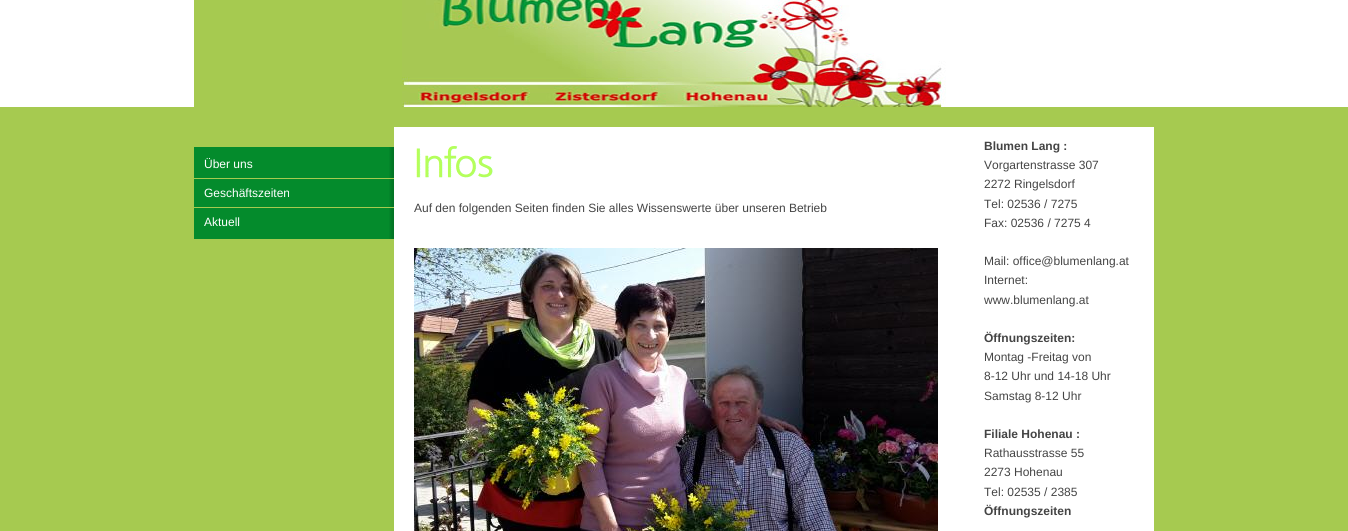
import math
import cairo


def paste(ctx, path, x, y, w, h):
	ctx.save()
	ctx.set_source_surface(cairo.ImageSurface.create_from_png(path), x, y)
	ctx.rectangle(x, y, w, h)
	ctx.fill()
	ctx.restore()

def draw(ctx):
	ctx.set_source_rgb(0.651, 0.792, 0.314)
	ctx.paint()
	ctx.set_source_rgb(1, 1, 1)
	ctx.rectangle(0, 0, 1348, 107)
	ctx.fill()
	paste(ctx, 'media/1.png', 194, 0, 752, 107)
	ctx.rectangle(394, 127, 760, 404)
	ctx.fill()
	ctx.set_source_rgb(0.016, 0.545, 0.173)
	ctx.rectangle(194, 147, 195, 92)
	ctx.fill()
	paste(ctx, 'media/2.png', 389, 147, 5, 92)
	ctx.select_font_face('Liberation Sans')
	ctx.set_font_size(12)
	ctx.set_source_rgb(1, 1, 1)
	ctx.move_to(204, 168)
	ctx.show_text('Über uns')
	ctx.set_source_rgb(0.651, 0.792, 0.314)
	ctx.rectangle(194, 178, 200, 1)
	ctx.fill()
	ctx.set_source_rgb(1, 1, 1)
	ctx.move_to(204, 197)
	ctx.show_text('Geschäftszeiten')
	ctx.set_source_rgb(0.651, 0.792, 0.314)
	ctx.rectangle(194, 207, 200, 1)
	ctx.fill()
	ctx.set_source_rgb(1, 1, 1)
	ctx.move_to(204, 226)
	ctx.show_text('Aktuell')
	paste(ctx, 'media/3.png', 416, 146, 78, 32)
	ctx.set_source_rgb(0.267, 0.267, 0.267)
	ctx.move_to(414, 212)
	ctx.show_text('Auf den folgenden Seiten finden Sie alles Wissenswerte über unseren Betrieb')
	paste(ctx, 'media/4.png', 414, 248, 524, 283)
	ctx.select_font_face('Liberation Sans', cairo.FONT_SLANT_NORMAL, cairo.FONT_WEIGHT_BOLD)
	ctx.move_to(984, 150)
	ctx.show_text('Blumen Lang :')
	ctx.select_font_face('Liberation Sans')
	for x, y, s in [
		(984, 169, 'Vorgartenstrasse 307'),
		(984, 188, '2272 Ringelsdorf'),
		(984, 208, 'Tel: 02536 / 7275'),
		(984, 227, 'Fax: 02536 / 7275 4'),
		(984, 265, 'Mail: office@blumenlang.at'),
		(984, 284, 'Internet:'),
		(984, 304, 'www.blumenlang.at'),
	]:
		ctx.move_to(x, y)
		ctx.show_text(s)
	ctx.select_font_face('Liberation Sans', cairo.FONT_SLANT_NORMAL, cairo.FONT_WEIGHT_BOLD)
	ctx.move_to(984, 342)
	ctx.show_text('Öffnungszeiten:')
	ctx.select_font_face('Liberation Sans')
	for x, y, s in [
		(984, 361, 'Montag -Freitag von'),
		(984, 380, '8-12 Uhr und 14-18 Uhr'),
		(984, 400, 'Samstag 8-12 Uhr'),
	]:
		ctx.move_to(x, y)
		ctx.show_text(s)
	ctx.select_font_face('Liberation Sans', cairo.FONT_SLANT_NORMAL, cairo.FONT_WEIGHT_BOLD)
	ctx.move_to(984, 438)
	ctx.show_text('Filiale Hohenau :')
	ctx.select_font_face('Liberation Sans')
	for x, y, s in [
		(984, 457, 'Rathausstrasse 55'),
		(984, 476, '2273 Hohenau'),
		(984, 496, 'Tel: 02535 / 2385'),
	]:
		ctx.move_to(x, y)
		ctx.show_text(s)
	ctx.select_font_face('Liberation Sans', cairo.FONT_SLANT_NORMAL, cairo.FONT_WEIGHT_BOLD)
	ctx.move_to(984, 515)
	ctx.show_text('Öffnungszeiten')


surface = cairo.ImageSurface(cairo.FORMAT_RGB24, 1348, 531)
ctx = cairo.Context(surface)
options = cairo.FontOptions()
options.set_hint_metrics(cairo.HINT_METRICS_OFF)
options.set_hint_style(cairo.HINT_STYLE_NONE)
ctx.set_font_options(options)
ctx.set_miter_limit(4)
draw(ctx)
surface.write_to_png('image.png')
